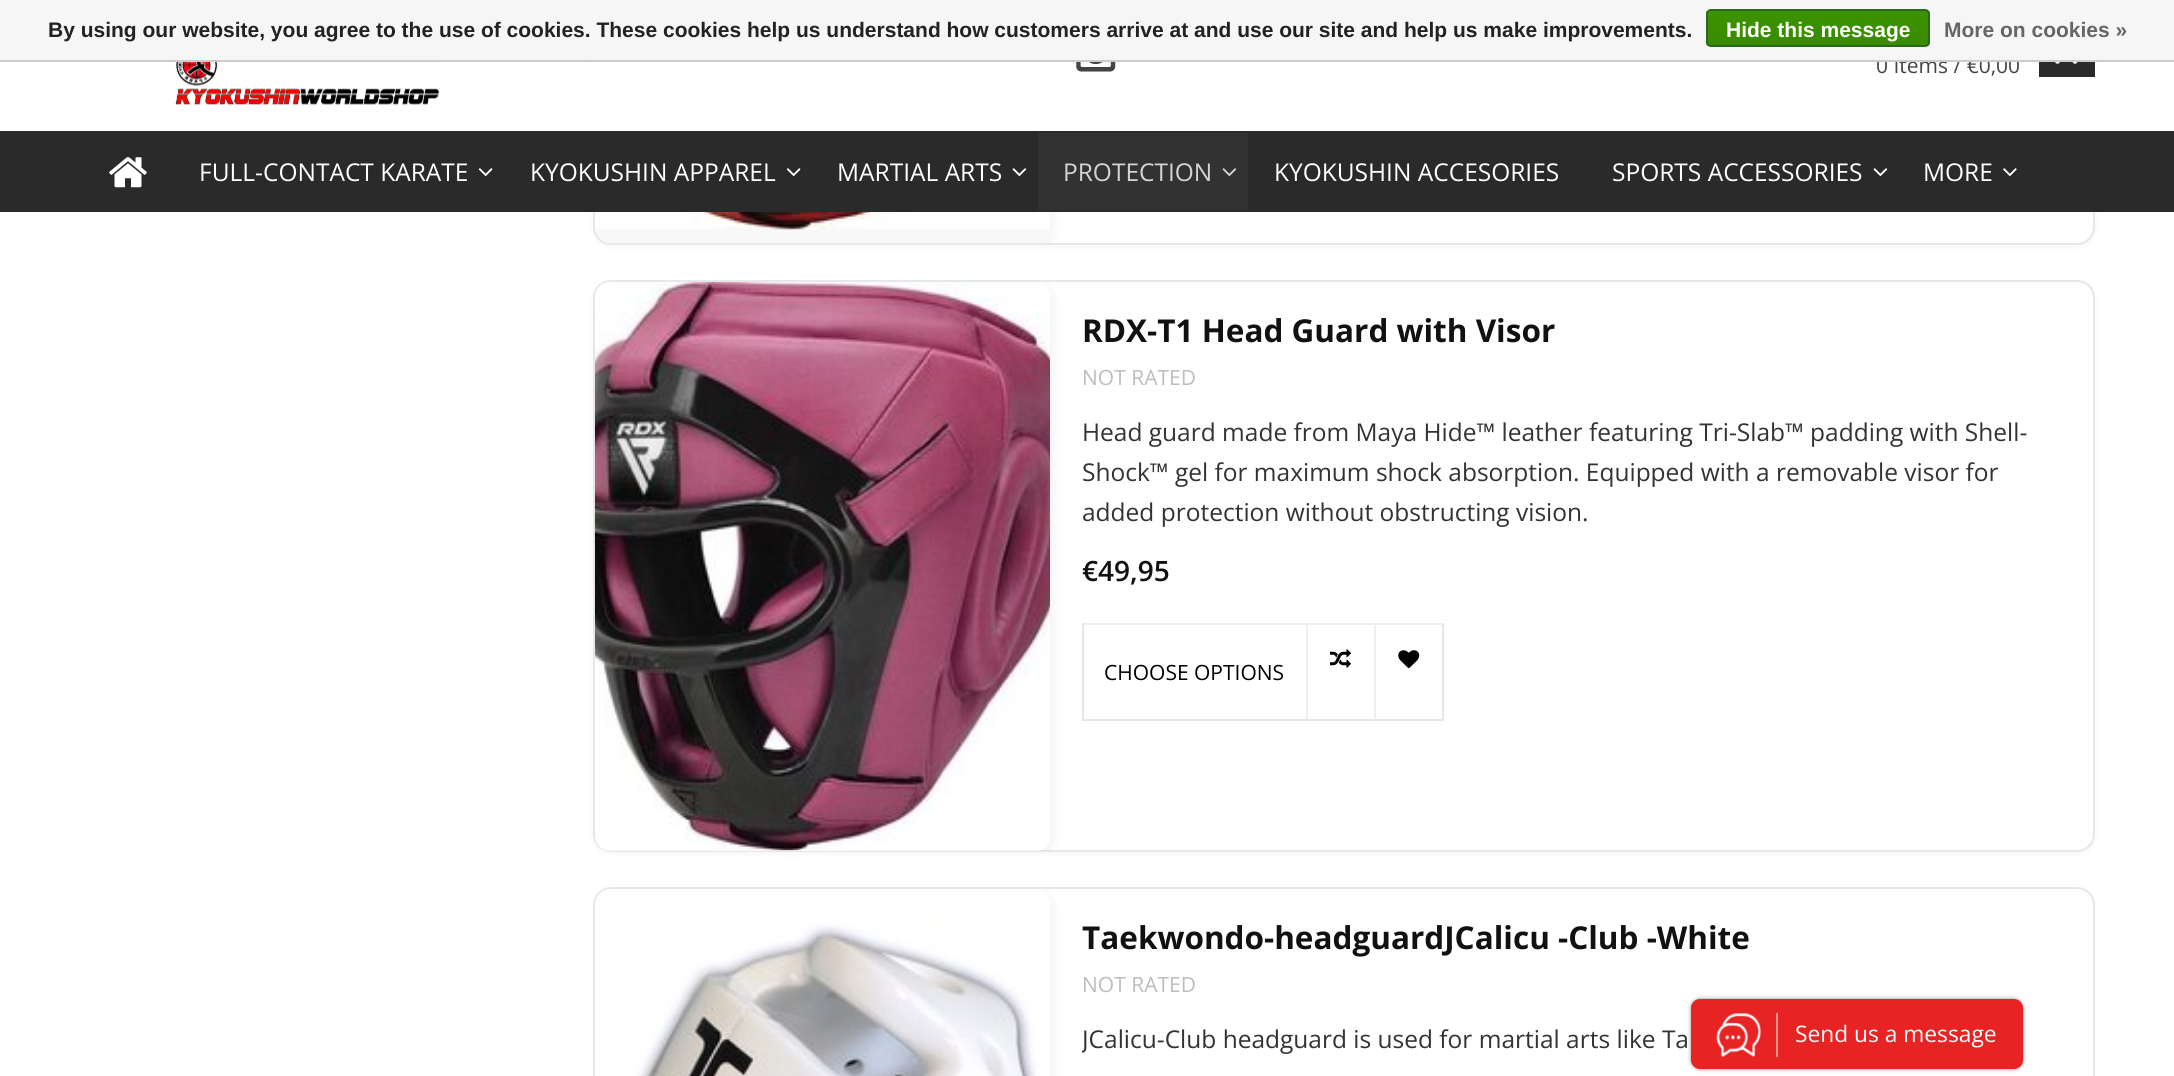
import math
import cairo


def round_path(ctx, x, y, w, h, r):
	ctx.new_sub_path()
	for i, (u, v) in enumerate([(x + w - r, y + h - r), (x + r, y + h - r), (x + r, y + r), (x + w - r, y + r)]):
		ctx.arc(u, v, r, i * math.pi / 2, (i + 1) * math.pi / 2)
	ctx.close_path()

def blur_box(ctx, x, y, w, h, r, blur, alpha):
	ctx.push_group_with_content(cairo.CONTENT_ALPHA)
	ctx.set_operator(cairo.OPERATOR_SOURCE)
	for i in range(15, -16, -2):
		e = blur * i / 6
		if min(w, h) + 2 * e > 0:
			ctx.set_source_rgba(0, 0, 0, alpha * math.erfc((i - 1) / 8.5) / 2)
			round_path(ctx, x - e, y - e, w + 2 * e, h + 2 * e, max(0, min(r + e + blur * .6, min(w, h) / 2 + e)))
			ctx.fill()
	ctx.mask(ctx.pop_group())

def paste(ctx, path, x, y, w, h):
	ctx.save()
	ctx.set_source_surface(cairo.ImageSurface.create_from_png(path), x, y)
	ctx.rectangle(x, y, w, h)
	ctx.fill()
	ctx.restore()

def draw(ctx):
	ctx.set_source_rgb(1, 1, 1)
	ctx.paint()
	ctx.set_source_rgb(0, 0, 0)
	blur_box(ctx, 593, -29, 1502, 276, 18, 3.5, 0.04)
	ctx.set_source_rgb(1, 1, 1)
	round_path(ctx, 594, -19, 1500, 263, 17)
	ctx.fill_preserve()
	ctx.set_source_rgb(0.906, 0.906, 0.906)
	ctx.stroke()
	ctx.save()
	round_path(ctx, 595, -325, 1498, 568, 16)
	ctx.clip()
	ctx.set_source_rgb(0, 0, 0)
	blur_box(ctx, 595, -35, 455, 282, 14, 7, 0.08)
	ctx.restore()
	ctx.set_source_rgb(1, 1, 1)
	ctx.new_path()
	ctx.move_to(611, -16)
	ctx.line_to(1036, -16)
	ctx.curve_to(1043.5, -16, 1050, -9.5, 1050, -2)
	ctx.line_to(1050, 229)
	ctx.curve_to(1050, 236.5, 1043.5, 243, 1036, 243)
	ctx.line_to(611, 243)
	ctx.curve_to(602, 243, 595, 236, 595, 227)
	ctx.line_to(595, 0)
	ctx.curve_to(595, -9, 602, -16, 611, -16)
	ctx.close_path()
	ctx.fill()
	ctx.save()
	round_path(ctx, 595, -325, 455, 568, 14)
	ctx.clip()
	ctx.set_source_rgb(0.969, 0.969, 0.969)
	ctx.new_path()
	ctx.move_to(611, -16)
	ctx.line_to(1036, -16)
	ctx.curve_to(1043.5, -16, 1050, -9.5, 1050, -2)
	ctx.line_to(1050, 229)
	ctx.curve_to(1050, 236.5, 1043.5, 243, 1036, 243)
	ctx.line_to(611, 243)
	ctx.curve_to(602, 243, 595, 236, 595, 227)
	ctx.line_to(595, 0)
	ctx.curve_to(595, -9, 602, -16, 611, -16)
	ctx.close_path()
	ctx.fill()
	ctx.restore()
	ctx.rectangle(591, 62, 1506, 69)
	ctx.fill()
	ctx.select_font_face('Open Sans')
	ctx.set_font_size(21)
	ctx.set_source_rgb(0.267, 0.267, 0.267)
	ctx.move_to(1876, 73)
	ctx.show_text('0 Items / €0,00')
	ctx.set_source_rgb(0.961, 0.961, 0.961)
	ctx.rectangle(0, 0, 2174, 60)
	ctx.fill()
	ctx.set_source_rgb(0.8, 0.8, 0.8)
	ctx.rectangle(0, 60, 2174, 2)
	ctx.fill()
	ctx.select_font_face('Liberation Sans', cairo.FONT_SLANT_NORMAL, cairo.FONT_WEIGHT_BOLD)
	ctx.set_source_rgb(0.133, 0.133, 0.133)
	ctx.move_to(48, 37)
	ctx.show_text('By using our website, you agree to the use of cookies. These cookies help us understand how customers arrive at and use our site and help us make improvements.')
	ctx.save()
	round_path(ctx, 1706, 9, 224, 38, 5)
	ctx.clip()
	gradient = cairo.LinearGradient(1818, 10, 1818, 46)
	gradient.add_color_stop_rgba(0, 0.235, 0.576, 0, 1)
	gradient.add_color_stop_rgba(1, 0.224, 0.541, 0, 1)
	ctx.set_source(gradient)
	ctx.rectangle(1706, 11, 224, 35)
	ctx.fill()
	ctx.restore()
	round_path(ctx, 1707, 10, 222, 36, 4)
	ctx.set_source_rgb(0.161, 0.412, 0.114)
	ctx.stroke()
	ctx.set_source_rgb(1, 1, 1)
	ctx.move_to(1726, 37)
	ctx.show_text('Hide this message')
	ctx.set_source_rgb(0.4, 0.4, 0.4)
	ctx.move_to(1944, 37)
	ctx.show_text('More on cookies »')
	paste(ctx, 'media/1.png', 174, 62, 266, 43)
	paste(ctx, 'media/2.png', 1076, 62, 40, 10)
	ctx.set_source_rgb(0.165, 0.165, 0.165)
	ctx.rectangle(2039, 62, 56, 15)
	ctx.fill()
	paste(ctx, 'media/3.png', 2055, 62, 23, 2)
	ctx.rectangle(0, 131, 2174, 81)
	ctx.fill()
	paste(ctx, 'media/4.png', 109, 157, 38, 31)
	ctx.select_font_face('Open Sans')
	ctx.set_font_size(24.5)
	ctx.set_source_rgb(1, 1, 1)
	ctx.move_to(199, 181)
	ctx.show_text('FULL-CONTACT KARATE')
	paste(ctx, 'media/5.png', 478, 168, 15, 9)
	ctx.move_to(530, 181)
	ctx.show_text('KYOKUSHIN APPAREL')
	paste(ctx, 'media/5.png', 786, 168, 15, 9)
	ctx.move_to(837, 181)
	ctx.show_text('MARTIAL ARTS')
	paste(ctx, 'media/6.png', 1012, 168, 15, 9)
	ctx.set_source_rgb(0.196, 0.196, 0.196)
	ctx.rectangle(1038, 133, 210, 77)
	ctx.fill()
	ctx.set_source_rgb(0.831, 0.831, 0.831)
	ctx.move_to(1063, 181)
	ctx.show_text('PROTECTION')
	paste(ctx, 'media/7.png', 1222, 168, 15, 9)
	ctx.set_source_rgb(1, 1, 1)
	ctx.move_to(1274, 181)
	ctx.show_text('KYOKUSHIN ACCESORIES')
	ctx.move_to(1612, 181)
	ctx.show_text('SPORTS ACCESSORIES')
	paste(ctx, 'media/6.png', 1873, 168, 15, 9)
	ctx.move_to(1923, 181)
	ctx.show_text('MORE')
	paste(ctx, 'media/8.png', 2003, 168, 14, 9)
	paste(ctx, 'media/9.png', 595, 212, 455, 18)
	ctx.set_source_rgb(0, 0, 0)
	blur_box(ctx, 593, 282, 1502, 572, 18, 3.5, 0.04)
	ctx.set_source_rgb(1, 1, 1)
	round_path(ctx, 594, 281, 1500, 570, 17)
	ctx.fill_preserve()
	ctx.set_source_rgb(0.906, 0.906, 0.906)
	ctx.stroke()
	ctx.save()
	round_path(ctx, 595, 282, 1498, 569, 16)
	ctx.clip()
	ctx.set_source_rgb(0, 0, 0)
	blur_box(ctx, 595, 285, 455, 569, 14, 7, 0.08)
	ctx.restore()
	ctx.set_source_rgb(1, 1, 1)
	ctx.new_path()
	ctx.move_to(611, 282)
	ctx.line_to(1036, 282)
	ctx.curve_to(1043.5, 282, 1050, 288.5, 1050, 296)
	ctx.line_to(1050, 837)
	ctx.curve_to(1050, 844.5, 1043.5, 851, 1036, 851)
	ctx.line_to(611, 851)
	ctx.curve_to(602, 851, 595, 844, 595, 835)
	ctx.line_to(595, 298)
	ctx.curve_to(595, 289, 602, 282, 611, 282)
	ctx.close_path()
	ctx.fill()
	ctx.save()
	round_path(ctx, 595, 282, 455, 569, 14)
	ctx.clip()
	ctx.set_source_rgb(0.969, 0.969, 0.969)
	ctx.new_path()
	ctx.move_to(611, 282)
	ctx.line_to(1036, 282)
	ctx.curve_to(1043.5, 282, 1050, 288.5, 1050, 296)
	ctx.line_to(1050, 837)
	ctx.curve_to(1050, 844.5, 1043.5, 851, 1036, 851)
	ctx.line_to(611, 851)
	ctx.curve_to(602, 851, 595, 844, 595, 835)
	ctx.line_to(595, 298)
	ctx.curve_to(595, 289, 602, 282, 611, 282)
	ctx.close_path()
	ctx.fill()
	ctx.restore()
	paste(ctx, 'media/10.png', 595, 282, 455, 569)
	ctx.select_font_face('Open Sans', cairo.FONT_SLANT_NORMAL, cairo.FONT_WEIGHT_BOLD)
	ctx.set_font_size(31.5)
	ctx.set_source_rgb(0.067, 0.067, 0.067)
	ctx.move_to(1082, 342)
	ctx.show_text('RDX-T1 Head Guard with Visor')
	ctx.select_font_face('Open Sans')
	ctx.set_font_size(21)
	ctx.set_source_rgb(0.741, 0.741, 0.741)
	ctx.move_to(1082, 385)
	ctx.show_text('NOT RATED')
	ctx.set_font_size(24.5)
	ctx.set_source_rgb(0.2, 0.2, 0.2)
	for x, y, s in [
		(1082, 441, 'Head guard made from Maya Hide™ leather featuring Tri-Slab™ padding with Shell-'),
		(1082, 481, 'Shock™ gel for maximum shock absorption. Equipped with a removable visor for'),
		(1082, 521, 'added protection without obstructing vision.'),
	]:
		ctx.move_to(x, y)
		ctx.show_text(s)
	ctx.select_font_face('Open Sans SemiBold')
	ctx.set_font_size(28)
	ctx.set_source_rgb(0.067, 0.067, 0.067)
	ctx.move_to(1082, 581)
	ctx.show_text('€49,95')
	ctx.set_source_rgb(0.933, 0.933, 0.933)
	ctx.rectangle(1082, 623, 362, 2)
	ctx.fill()
	ctx.set_source_rgb(0.906, 0.906, 0.906)
	ctx.rectangle(1442, 623, 2, 98)
	ctx.rectangle(1082, 719, 362, 2)
	ctx.rectangle(1082, 623, 2, 98)
	ctx.fill()
	ctx.select_font_face('Open Sans')
	ctx.set_font_size(21)
	ctx.set_source_rgb(0, 0, 0)
	ctx.move_to(1104, 680)
	ctx.show_text('CHOOSE OPTIONS')
	ctx.set_source_rgb(0.933, 0.933, 0.933)
	ctx.rectangle(1306, 625, 2, 94)
	ctx.fill()
	paste(ctx, 'media/11.png', 1330, 649, 21, 19)
	ctx.rectangle(1374, 625, 2, 94)
	ctx.fill()
	paste(ctx, 'media/12.png', 1398, 650, 22, 19)
	round_path(ctx, 594, 888, 1500, 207, 17)
	ctx.set_source_rgb(0.906, 0.906, 0.906)
	ctx.stroke()
	ctx.save()
	round_path(ctx, 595, 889, 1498, 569, 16)
	ctx.clip()
	ctx.set_source_rgb(0, 0, 0)
	blur_box(ctx, 595, 893, 455, 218, 14, 7, 0.08)
	ctx.restore()
	paste(ctx, 'media/13.png', 595, 889, 455, 187)
	ctx.select_font_face('Open Sans', cairo.FONT_SLANT_NORMAL, cairo.FONT_WEIGHT_BOLD)
	ctx.set_font_size(31.5)
	ctx.set_source_rgb(0.067, 0.067, 0.067)
	ctx.move_to(1082, 949)
	ctx.show_text('Taekwondo-headguardJCalicu -Club -White')
	ctx.select_font_face('Open Sans')
	ctx.set_font_size(21)
	ctx.set_source_rgb(0.741, 0.741, 0.741)
	ctx.move_to(1082, 992)
	ctx.show_text('NOT RATED')
	ctx.save()
	ctx.rectangle(1082, 1019, 980, 40)
	ctx.clip()
	ctx.set_font_size(24.5)
	ctx.set_source_rgb(0.2, 0.2, 0.2)
	ctx.move_to(1082, 1048)
	ctx.show_text('JCalicu-Club headguard is used for martial arts like Ta')
	ctx.restore()
	ctx.set_source_rgb(0, 0, 0)
	blur_box(ctx, 1691, 999, 332, 70, 9, 2, 0.45)
	ctx.set_source_rgb(0.906, 0.137, 0.137)
	round_path(ctx, 1691, 999, 332, 70, 9)
	ctx.fill()
	paste(ctx, 'media/14.png', 1716, 1013, 45, 44)
	ctx.set_source_rgb(0.953, 0.569, 0.569)
	ctx.rectangle(1776, 1013, 2, 44)
	ctx.fill()
	ctx.set_font_size(22.75)
	ctx.set_source_rgb(1, 1, 1)
	ctx.move_to(1795, 1042)
	ctx.show_text('Send us a message')


surface = cairo.ImageSurface(cairo.FORMAT_RGB24, 2174, 1076)
ctx = cairo.Context(surface)
options = cairo.FontOptions()
options.set_hint_metrics(cairo.HINT_METRICS_OFF)
options.set_hint_style(cairo.HINT_STYLE_NONE)
ctx.set_font_options(options)
ctx.set_miter_limit(4)
draw(ctx)
surface.write_to_png('image.png')
